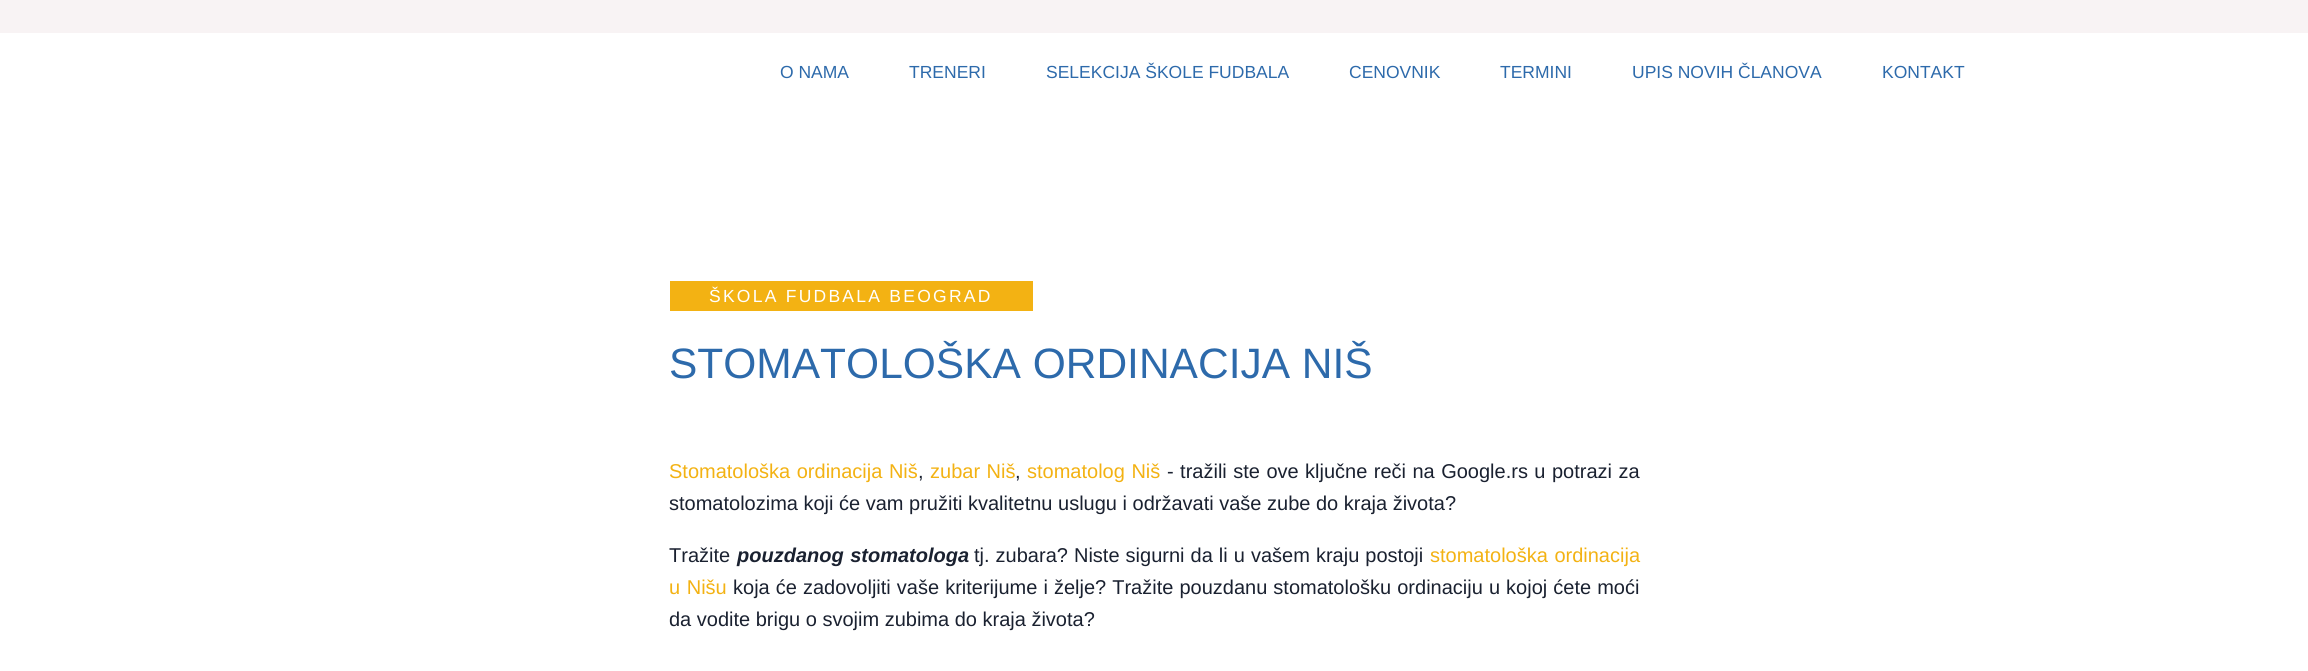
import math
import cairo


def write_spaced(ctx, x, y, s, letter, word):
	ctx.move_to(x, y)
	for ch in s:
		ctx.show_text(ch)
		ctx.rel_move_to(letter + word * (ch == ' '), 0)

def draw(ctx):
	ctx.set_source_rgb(1, 1, 1)
	ctx.paint()
	ctx.set_source_rgb(0.969, 0.953, 0.957)
	ctx.rectangle(0, 0, 2308, 33)
	ctx.fill()
	ctx.select_font_face('Liberation Sans')
	ctx.set_font_size(17.5)
	ctx.set_source_rgb(0.176, 0.416, 0.671)
	for x, y, s in [
		(780, 78, 'O NAMA'),
		(909, 78, 'TRENERI'),
		(1046, 78, 'SELEKCIJA ŠKOLE FUDBALA'),
		(1349, 78, 'CENOVNIK'),
		(1500, 78, 'TERMINI'),
		(1632, 78, 'UPIS NOVIH ČLANOVA'),
		(1882, 78, 'KONTAKT'),
	]:
		ctx.move_to(x, y)
		ctx.show_text(s)
	ctx.set_source_rgb(0.953, 0.698, 0.075)
	ctx.rectangle(670, 281, 363, 30)
	ctx.fill()
	ctx.set_source_rgb(1, 1, 1)
	write_spaced(ctx, 709, 302, 'ŠKOLA FUDBALA BEOGRAD', 2.25, 0)
	ctx.set_font_size(42.5)
	ctx.set_source_rgb(0.176, 0.416, 0.671)
	ctx.move_to(669, 378)
	ctx.show_text('STOMATOLOŠKA ORDINACIJA NIŠ')
	ctx.set_font_size(20)
	ctx.set_source_rgb(0.953, 0.698, 0.075)
	write_spaced(ctx, 669, 478, 'Stomatološka ordinacija Niš', 0, 1)
	ctx.set_source_rgb(0.102, 0.129, 0.188)
	ctx.move_to(918, 478)
	ctx.show_text(',')
	ctx.set_source_rgb(0.953, 0.698, 0.075)
	write_spaced(ctx, 930, 478, 'zubar Niš', 0, 1)
	ctx.set_source_rgb(0.102, 0.129, 0.188)
	ctx.move_to(1015, 478)
	ctx.show_text(',')
	ctx.set_source_rgb(0.953, 0.698, 0.075)
	write_spaced(ctx, 1027, 478, 'stomatolog Niš', 0, 1)
	ctx.set_source_rgb(0.102, 0.129, 0.188)
	write_spaced(ctx, 1167, 478, '- tražili ste ove ključne reči na Google.rs u potrazi za', 0, 0.9)
	ctx.move_to(669, 510)
	ctx.show_text('stomatolozima koji će vam pružiti kvalitetnu uslugu i održavati vaše zube do kraja života?')
	ctx.move_to(669, 562)
	ctx.show_text('Tražite')
	ctx.select_font_face('Liberation Sans', cairo.FONT_SLANT_ITALIC, cairo.FONT_WEIGHT_BOLD)
	write_spaced(ctx, 737, 562, 'pouzdanog stomatologa', 0, 1)
	ctx.select_font_face('Liberation Sans')
	write_spaced(ctx, 974, 562, 'tj. zubara? Niste sigurni da li u vašem kraju postoji', 0, 0.5)
	ctx.set_source_rgb(0.953, 0.698, 0.075)
	write_spaced(ctx, 1430, 562, 'stomatološka ordinacija', 0, 1)
	write_spaced(ctx, 669, 594, 'u Nišu', 0, 1)
	ctx.set_source_rgb(0.102, 0.129, 0.188)
	write_spaced(ctx, 733, 594, 'koja će zadovoljiti vaše kriterijume i želje? Tražite pouzdanu stomatološku ordinaciju u kojoj ćete moći', 0, 0.5)
	ctx.move_to(669, 626)
	ctx.show_text('da vodite brigu o svojim zubima do kraja života?')


surface = cairo.ImageSurface(cairo.FORMAT_RGB24, 2308, 671)
ctx = cairo.Context(surface)
options = cairo.FontOptions()
options.set_hint_metrics(cairo.HINT_METRICS_OFF)
options.set_hint_style(cairo.HINT_STYLE_NONE)
ctx.set_font_options(options)
ctx.set_miter_limit(4)
draw(ctx)
surface.write_to_png('image.png')
